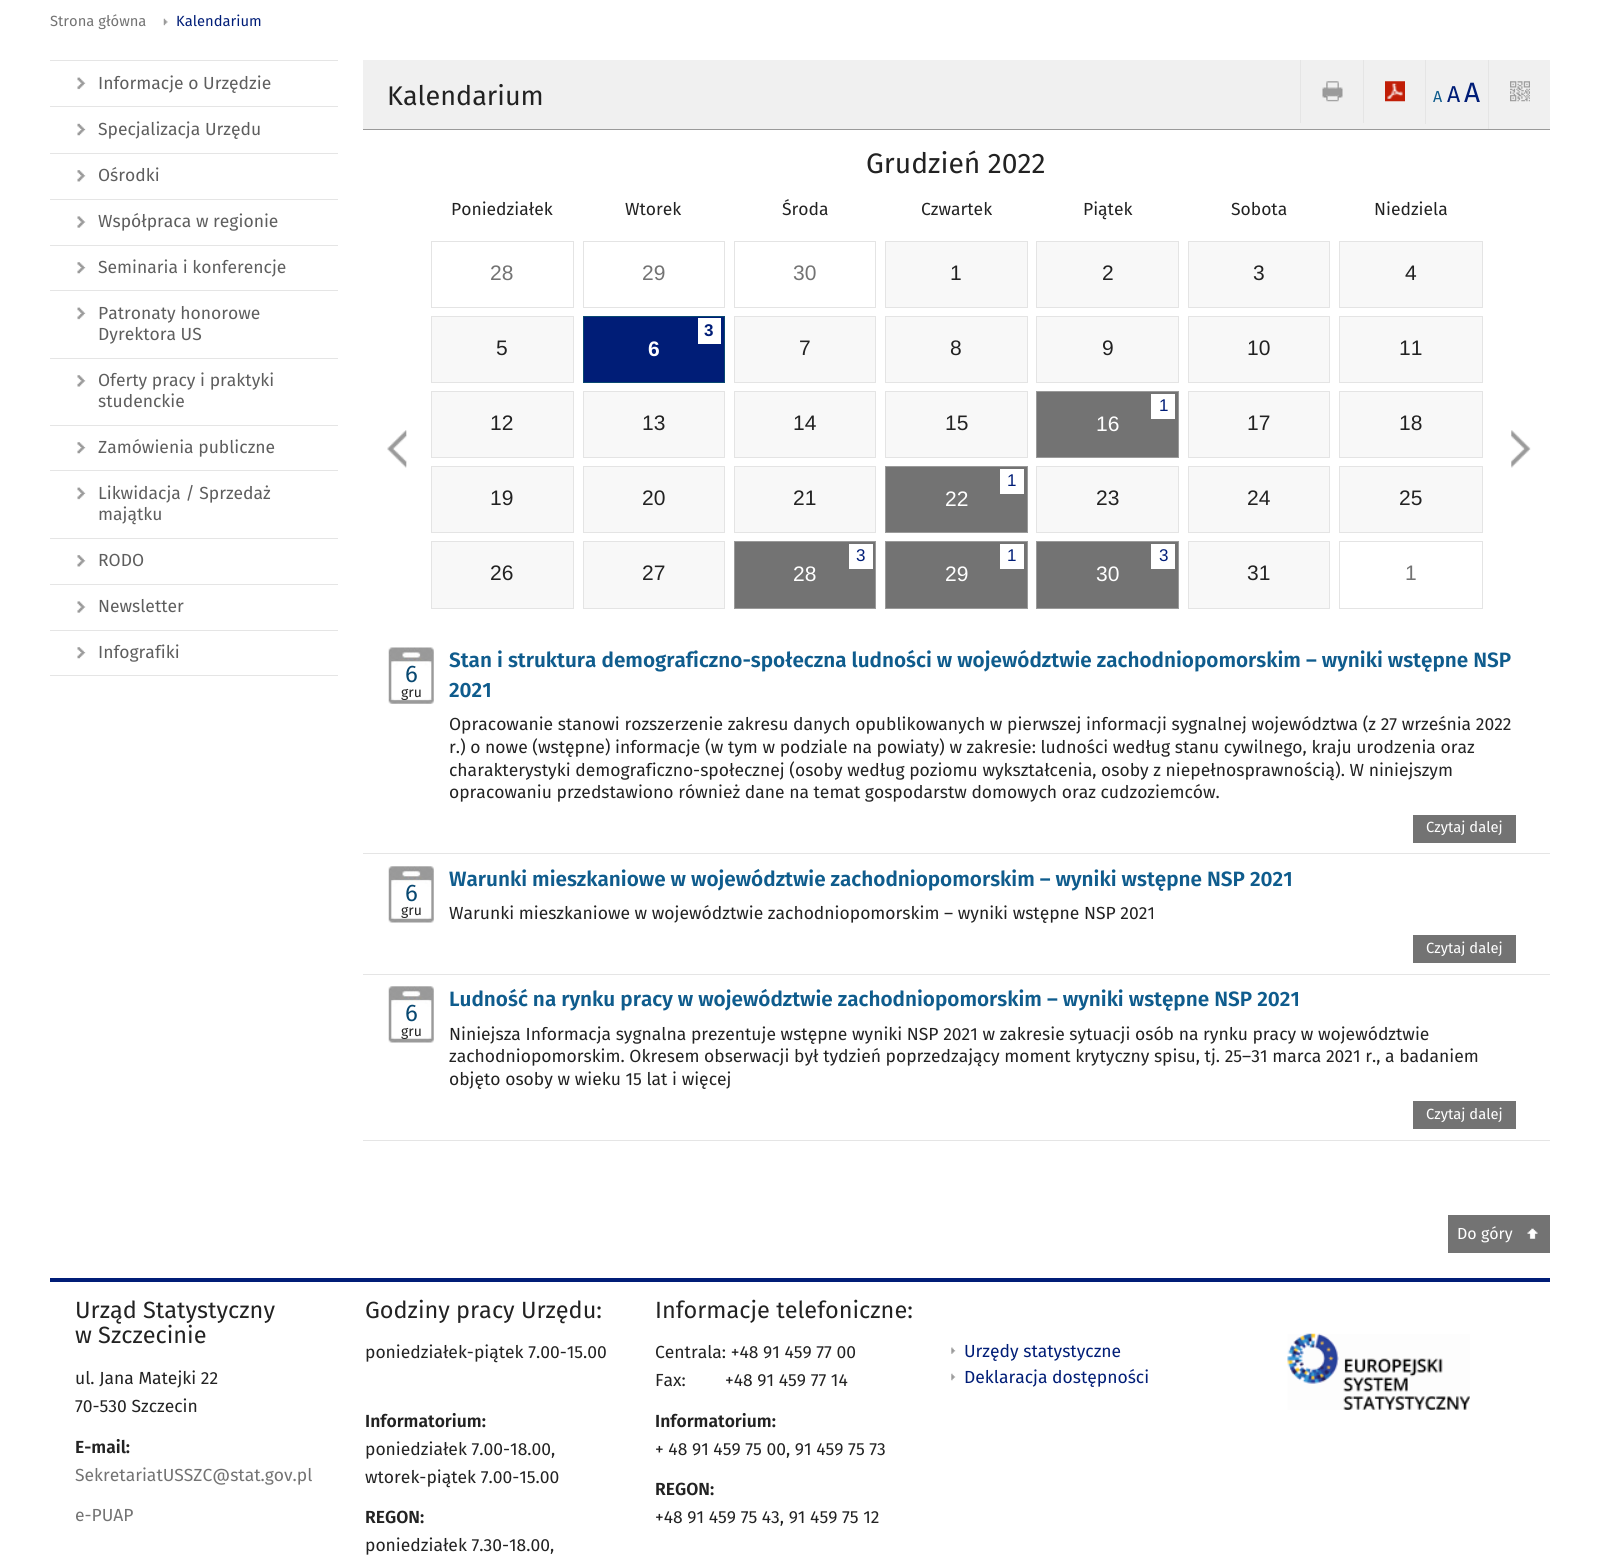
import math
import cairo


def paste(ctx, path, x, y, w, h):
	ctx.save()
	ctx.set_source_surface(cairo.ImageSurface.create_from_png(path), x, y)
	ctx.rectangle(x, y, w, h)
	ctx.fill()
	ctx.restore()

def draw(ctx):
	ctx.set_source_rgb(1, 1, 1)
	ctx.paint()
	ctx.select_font_face('Fira Sans')
	ctx.set_font_size(14.75)
	ctx.set_source_rgb(0.451, 0.451, 0.451)
	ctx.move_to(50, 26)
	ctx.show_text('Strona główna')
	paste(ctx, 'media/1.png', 163, 18, 5, 8)
	ctx.set_source_rgb(0, 0.114, 0.467)
	ctx.move_to(176, 26)
	ctx.show_text('Kalendarium')
	paste(ctx, 'media/2.png', 77, 77, 9, 13)
	ctx.set_source_rgb(0.898, 0.898, 0.898)
	ctx.rectangle(50, 60, 288, 1)
	ctx.fill()
	ctx.rectangle(50, 106, 288, 1)
	ctx.fill()
	ctx.set_font_size(17.5)
	ctx.set_source_rgb(0.369, 0.369, 0.369)
	ctx.move_to(98, 89)
	ctx.show_text('Informacje o Urzędzie')
	paste(ctx, 'media/3.png', 77, 123, 9, 13)
	ctx.set_source_rgb(0.898, 0.898, 0.898)
	ctx.rectangle(50, 153, 288, 1)
	ctx.fill()
	ctx.set_source_rgb(0.369, 0.369, 0.369)
	ctx.move_to(98, 135)
	ctx.show_text('Specjalizacja Urzędu')
	paste(ctx, 'media/4.png', 77, 170, 9, 12)
	ctx.set_source_rgb(0.898, 0.898, 0.898)
	ctx.rectangle(50, 199, 288, 1)
	ctx.fill()
	ctx.set_source_rgb(0.369, 0.369, 0.369)
	ctx.move_to(98, 181)
	ctx.show_text('Ośrodki')
	paste(ctx, 'media/5.png', 77, 216, 9, 12)
	ctx.set_source_rgb(0.898, 0.898, 0.898)
	ctx.rectangle(50, 245, 288, 1)
	ctx.fill()
	ctx.set_source_rgb(0.369, 0.369, 0.369)
	ctx.move_to(98, 227)
	ctx.show_text('Współpraca w regionie')
	paste(ctx, 'media/6.png', 77, 262, 9, 12)
	ctx.set_source_rgb(0.898, 0.898, 0.898)
	ctx.rectangle(50, 290, 288, 1)
	ctx.fill()
	ctx.set_source_rgb(0.369, 0.369, 0.369)
	ctx.move_to(98, 273)
	ctx.show_text('Seminaria i konferencje')
	paste(ctx, 'media/7.png', 77, 307, 9, 13)
	ctx.set_source_rgb(0.898, 0.898, 0.898)
	ctx.rectangle(50, 358, 288, 1)
	ctx.fill()
	ctx.set_source_rgb(0.369, 0.369, 0.369)
	ctx.move_to(98, 319)
	ctx.show_text('Patronaty honorowe')
	ctx.move_to(98, 340)
	ctx.show_text('Dyrektora US')
	paste(ctx, 'media/8.png', 77, 375, 9, 12)
	ctx.set_source_rgb(0.898, 0.898, 0.898)
	ctx.rectangle(50, 425, 288, 1)
	ctx.fill()
	ctx.set_source_rgb(0.369, 0.369, 0.369)
	ctx.move_to(98, 386)
	ctx.show_text('Oferty pracy i praktyki')
	ctx.move_to(98, 407)
	ctx.show_text('studenckie')
	paste(ctx, 'media/6.png', 77, 442, 9, 12)
	ctx.set_source_rgb(0.898, 0.898, 0.898)
	ctx.rectangle(50, 470, 288, 1)
	ctx.fill()
	ctx.set_source_rgb(0.369, 0.369, 0.369)
	ctx.move_to(98, 453)
	ctx.show_text('Zamówienia publiczne')
	paste(ctx, 'media/7.png', 77, 487, 9, 13)
	ctx.set_source_rgb(0.898, 0.898, 0.898)
	ctx.rectangle(50, 538, 288, 1)
	ctx.fill()
	ctx.set_source_rgb(0.369, 0.369, 0.369)
	ctx.move_to(98, 499)
	ctx.show_text('Likwidacja / Sprzedaż')
	ctx.move_to(98, 520)
	ctx.show_text('majątku')
	paste(ctx, 'media/4.png', 77, 555, 9, 12)
	ctx.set_source_rgb(0.898, 0.898, 0.898)
	ctx.rectangle(50, 584, 288, 1)
	ctx.fill()
	ctx.set_source_rgb(0.369, 0.369, 0.369)
	ctx.move_to(98, 566)
	ctx.show_text('RODO')
	paste(ctx, 'media/5.png', 77, 601, 9, 12)
	ctx.set_source_rgb(0.898, 0.898, 0.898)
	ctx.rectangle(50, 630, 288, 1)
	ctx.fill()
	ctx.set_source_rgb(0.369, 0.369, 0.369)
	ctx.move_to(98, 612)
	ctx.show_text('Newsletter')
	paste(ctx, 'media/6.png', 77, 647, 9, 12)
	ctx.set_source_rgb(0.898, 0.898, 0.898)
	ctx.rectangle(50, 675, 288, 1)
	ctx.fill()
	ctx.set_source_rgb(0.369, 0.369, 0.369)
	ctx.move_to(98, 658)
	ctx.show_text('Infografiki')
	ctx.set_source_rgb(0.941, 0.941, 0.941)
	ctx.rectangle(363, 60, 1187, 69)
	ctx.fill()
	ctx.set_source_rgb(0.604, 0.604, 0.604)
	ctx.rectangle(363, 129, 1187, 1)
	ctx.fill()
	ctx.set_font_size(27)
	ctx.set_source_rgb(0.133, 0.133, 0.133)
	ctx.move_to(387, 105)
	ctx.show_text('Kalendarium')
	ctx.set_source_rgb(0.898, 0.898, 0.898)
	ctx.rectangle(1300, 60, 1, 63)
	ctx.fill()
	paste(ctx, 'media/9.png', 1322, 81, 21, 21)
	ctx.rectangle(1363, 60, 1, 63)
	ctx.fill()
	paste(ctx, 'media/10.png', 1385, 81, 20, 21)
	ctx.rectangle(1425, 60, 1, 64)
	ctx.fill()
	ctx.set_font_size(16)
	ctx.set_source_rgb(0.059, 0.361, 0.553)
	ctx.move_to(1433, 102)
	ctx.show_text('A')
	ctx.set_font_size(23)
	ctx.set_source_rgb(0, 0.114, 0.467)
	ctx.move_to(1447, 102)
	ctx.show_text('A')
	ctx.set_font_size(28)
	ctx.move_to(1464, 102)
	ctx.show_text('A')
	ctx.set_source_rgb(0.898, 0.898, 0.898)
	ctx.rectangle(1488, 60, 1, 69)
	ctx.fill()
	paste(ctx, 'media/11.png', 1510, 81, 20, 21)
	ctx.set_font_size(28.25)
	ctx.set_source_rgb(0.133, 0.133, 0.133)
	ctx.move_to(866, 173)
	ctx.show_text('Grudzień 2022')
	paste(ctx, 'media/12.png', 387, 430, 20, 38)
	ctx.set_font_size(17.5)
	for x, y, s in [
		(451, 215, 'Poniedziałek'),
		(625, 215, 'Wtorek'),
		(782, 215, 'Środa'),
		(921, 215, 'Czwartek'),
		(1083, 215, 'Piątek'),
		(1231, 215, 'Sobota'),
		(1374, 215, 'Niedziela'),
	]:
		ctx.move_to(x, y)
		ctx.show_text(s)
	ctx.rectangle(431.5, 241.5, 142, 66)
	ctx.set_source_rgb(0.894, 0.894, 0.894)
	ctx.set_line_width(1)
	ctx.stroke()
	ctx.select_font_face('Liberation Sans')
	ctx.set_font_size(21)
	ctx.set_source_rgb(0.451, 0.451, 0.451)
	ctx.move_to(490, 280)
	ctx.show_text('28')
	ctx.rectangle(583.5, 241.5, 141, 66)
	ctx.set_source_rgb(0.894, 0.894, 0.894)
	ctx.stroke()
	ctx.set_source_rgb(0.451, 0.451, 0.451)
	ctx.move_to(642, 280)
	ctx.show_text('29')
	ctx.rectangle(734.5, 241.5, 141, 66)
	ctx.set_source_rgb(0.894, 0.894, 0.894)
	ctx.stroke()
	ctx.set_source_rgb(0.451, 0.451, 0.451)
	ctx.move_to(793, 280)
	ctx.show_text('30')
	ctx.set_source_rgb(0.969, 0.969, 0.969)
	ctx.rectangle(885.5, 241.5, 142, 66)
	ctx.fill_preserve()
	ctx.set_source_rgb(0.894, 0.894, 0.894)
	ctx.stroke()
	ctx.set_source_rgb(0.133, 0.133, 0.133)
	ctx.move_to(950, 280)
	ctx.show_text('1')
	ctx.set_source_rgb(0.969, 0.969, 0.969)
	ctx.rectangle(1036.5, 241.5, 142, 66)
	ctx.fill_preserve()
	ctx.set_source_rgb(0.894, 0.894, 0.894)
	ctx.stroke()
	ctx.set_source_rgb(0.133, 0.133, 0.133)
	ctx.move_to(1102, 280)
	ctx.show_text('2')
	ctx.set_source_rgb(0.969, 0.969, 0.969)
	ctx.rectangle(1188.5, 241.5, 141, 66)
	ctx.fill_preserve()
	ctx.set_source_rgb(0.894, 0.894, 0.894)
	ctx.stroke()
	ctx.set_source_rgb(0.133, 0.133, 0.133)
	ctx.move_to(1253, 280)
	ctx.show_text('3')
	ctx.set_source_rgb(0.969, 0.969, 0.969)
	ctx.rectangle(1339.5, 241.5, 143, 66)
	ctx.fill_preserve()
	ctx.set_source_rgb(0.894, 0.894, 0.894)
	ctx.stroke()
	ctx.set_source_rgb(0.133, 0.133, 0.133)
	ctx.move_to(1405, 280)
	ctx.show_text('4')
	ctx.set_source_rgb(0.969, 0.969, 0.969)
	ctx.rectangle(431.5, 316.5, 142, 66)
	ctx.fill_preserve()
	ctx.set_source_rgb(0.894, 0.894, 0.894)
	ctx.stroke()
	ctx.set_source_rgb(0.133, 0.133, 0.133)
	ctx.move_to(496, 355)
	ctx.show_text('5')
	ctx.set_source_rgb(0, 0.114, 0.467)
	ctx.rectangle(583.5, 316.5, 141, 66)
	ctx.fill_preserve()
	ctx.set_source_rgb(0.035, 0.282, 0.443)
	ctx.stroke()
	ctx.set_source_rgb(1, 1, 1)
	ctx.rectangle(698, 318, 23, 26)
	ctx.fill()
	ctx.select_font_face('Liberation Sans', cairo.FONT_SLANT_NORMAL, cairo.FONT_WEIGHT_BOLD)
	ctx.set_font_size(17)
	ctx.set_source_rgb(0, 0.114, 0.467)
	ctx.move_to(704, 336)
	ctx.show_text('3')
	ctx.set_font_size(21)
	ctx.set_source_rgb(1, 1, 1)
	ctx.move_to(648, 356)
	ctx.show_text('6')
	ctx.set_source_rgb(0.969, 0.969, 0.969)
	ctx.rectangle(734.5, 316.5, 141, 66)
	ctx.fill_preserve()
	ctx.set_source_rgb(0.894, 0.894, 0.894)
	ctx.stroke()
	ctx.select_font_face('Liberation Sans')
	ctx.set_source_rgb(0.133, 0.133, 0.133)
	ctx.move_to(799, 355)
	ctx.show_text('7')
	ctx.set_source_rgb(0.969, 0.969, 0.969)
	ctx.rectangle(885.5, 316.5, 142, 66)
	ctx.fill_preserve()
	ctx.set_source_rgb(0.894, 0.894, 0.894)
	ctx.stroke()
	ctx.set_source_rgb(0.133, 0.133, 0.133)
	ctx.move_to(950, 355)
	ctx.show_text('8')
	ctx.set_source_rgb(0.969, 0.969, 0.969)
	ctx.rectangle(1036.5, 316.5, 142, 66)
	ctx.fill_preserve()
	ctx.set_source_rgb(0.894, 0.894, 0.894)
	ctx.stroke()
	ctx.set_source_rgb(0.133, 0.133, 0.133)
	ctx.move_to(1102, 355)
	ctx.show_text('9')
	ctx.set_source_rgb(0.969, 0.969, 0.969)
	ctx.rectangle(1188.5, 316.5, 141, 66)
	ctx.fill_preserve()
	ctx.set_source_rgb(0.894, 0.894, 0.894)
	ctx.stroke()
	ctx.set_source_rgb(0.133, 0.133, 0.133)
	ctx.move_to(1247, 355)
	ctx.show_text('10')
	ctx.set_source_rgb(0.969, 0.969, 0.969)
	ctx.rectangle(1339.5, 316.5, 143, 66)
	ctx.fill_preserve()
	ctx.set_source_rgb(0.894, 0.894, 0.894)
	ctx.stroke()
	ctx.set_source_rgb(0.133, 0.133, 0.133)
	ctx.move_to(1399, 355)
	ctx.show_text('11')
	ctx.set_source_rgb(0.969, 0.969, 0.969)
	ctx.rectangle(431.5, 391.5, 142, 66)
	ctx.fill_preserve()
	ctx.set_source_rgb(0.894, 0.894, 0.894)
	ctx.stroke()
	ctx.set_source_rgb(0.133, 0.133, 0.133)
	ctx.move_to(490, 430)
	ctx.show_text('12')
	ctx.set_source_rgb(0.969, 0.969, 0.969)
	ctx.rectangle(583.5, 391.5, 141, 66)
	ctx.fill_preserve()
	ctx.set_source_rgb(0.894, 0.894, 0.894)
	ctx.stroke()
	ctx.set_source_rgb(0.133, 0.133, 0.133)
	ctx.move_to(642, 430)
	ctx.show_text('13')
	ctx.set_source_rgb(0.969, 0.969, 0.969)
	ctx.rectangle(734.5, 391.5, 141, 66)
	ctx.fill_preserve()
	ctx.set_source_rgb(0.894, 0.894, 0.894)
	ctx.stroke()
	ctx.set_source_rgb(0.133, 0.133, 0.133)
	ctx.move_to(793, 430)
	ctx.show_text('14')
	ctx.set_source_rgb(0.969, 0.969, 0.969)
	ctx.rectangle(885.5, 391.5, 142, 66)
	ctx.fill_preserve()
	ctx.set_source_rgb(0.894, 0.894, 0.894)
	ctx.stroke()
	ctx.set_source_rgb(0.133, 0.133, 0.133)
	ctx.move_to(945, 430)
	ctx.show_text('15')
	ctx.set_source_rgb(0.451, 0.451, 0.451)
	ctx.rectangle(1036.5, 391.5, 142, 66)
	ctx.fill_preserve()
	ctx.set_source_rgb(0.604, 0.604, 0.604)
	ctx.stroke()
	ctx.set_source_rgb(1, 1, 1)
	ctx.rectangle(1151, 394, 24, 25)
	ctx.fill()
	ctx.set_font_size(17)
	ctx.set_source_rgb(0, 0.114, 0.467)
	ctx.move_to(1159, 411)
	ctx.show_text('1')
	ctx.set_font_size(21)
	ctx.set_source_rgb(1, 1, 1)
	ctx.move_to(1096, 431)
	ctx.show_text('16')
	ctx.set_source_rgb(0.969, 0.969, 0.969)
	ctx.rectangle(1188.5, 391.5, 141, 66)
	ctx.fill_preserve()
	ctx.set_source_rgb(0.894, 0.894, 0.894)
	ctx.stroke()
	ctx.set_source_rgb(0.133, 0.133, 0.133)
	ctx.move_to(1247, 430)
	ctx.show_text('17')
	ctx.set_source_rgb(0.969, 0.969, 0.969)
	ctx.rectangle(1339.5, 391.5, 143, 66)
	ctx.fill_preserve()
	ctx.set_source_rgb(0.894, 0.894, 0.894)
	ctx.stroke()
	ctx.set_source_rgb(0.133, 0.133, 0.133)
	ctx.move_to(1399, 430)
	ctx.show_text('18')
	ctx.set_source_rgb(0.969, 0.969, 0.969)
	ctx.rectangle(431.5, 466.5, 142, 66)
	ctx.fill_preserve()
	ctx.set_source_rgb(0.894, 0.894, 0.894)
	ctx.stroke()
	ctx.set_source_rgb(0.133, 0.133, 0.133)
	ctx.move_to(490, 505)
	ctx.show_text('19')
	ctx.set_source_rgb(0.969, 0.969, 0.969)
	ctx.rectangle(583.5, 466.5, 141, 66)
	ctx.fill_preserve()
	ctx.set_source_rgb(0.894, 0.894, 0.894)
	ctx.stroke()
	ctx.set_source_rgb(0.133, 0.133, 0.133)
	ctx.move_to(642, 505)
	ctx.show_text('20')
	ctx.set_source_rgb(0.969, 0.969, 0.969)
	ctx.rectangle(734.5, 466.5, 141, 66)
	ctx.fill_preserve()
	ctx.set_source_rgb(0.894, 0.894, 0.894)
	ctx.stroke()
	ctx.set_source_rgb(0.133, 0.133, 0.133)
	ctx.move_to(793, 505)
	ctx.show_text('21')
	ctx.set_source_rgb(0.451, 0.451, 0.451)
	ctx.rectangle(885.5, 466.5, 142, 66)
	ctx.fill_preserve()
	ctx.set_source_rgb(0.604, 0.604, 0.604)
	ctx.stroke()
	ctx.set_source_rgb(1, 1, 1)
	ctx.rectangle(1000, 469, 24, 25)
	ctx.fill()
	ctx.set_font_size(17)
	ctx.set_source_rgb(0, 0.114, 0.467)
	ctx.move_to(1007, 486)
	ctx.show_text('1')
	ctx.set_font_size(21)
	ctx.set_source_rgb(1, 1, 1)
	ctx.move_to(945, 506)
	ctx.show_text('22')
	ctx.set_source_rgb(0.969, 0.969, 0.969)
	ctx.rectangle(1036.5, 466.5, 142, 66)
	ctx.fill_preserve()
	ctx.set_source_rgb(0.894, 0.894, 0.894)
	ctx.stroke()
	ctx.set_source_rgb(0.133, 0.133, 0.133)
	ctx.move_to(1096, 505)
	ctx.show_text('23')
	ctx.set_source_rgb(0.969, 0.969, 0.969)
	ctx.rectangle(1188.5, 466.5, 141, 66)
	ctx.fill_preserve()
	ctx.set_source_rgb(0.894, 0.894, 0.894)
	ctx.stroke()
	ctx.set_source_rgb(0.133, 0.133, 0.133)
	ctx.move_to(1247, 505)
	ctx.show_text('24')
	ctx.set_source_rgb(0.969, 0.969, 0.969)
	ctx.rectangle(1339.5, 466.5, 143, 66)
	ctx.fill_preserve()
	ctx.set_source_rgb(0.894, 0.894, 0.894)
	ctx.stroke()
	ctx.set_source_rgb(0.133, 0.133, 0.133)
	ctx.move_to(1399, 505)
	ctx.show_text('25')
	ctx.set_source_rgb(0.969, 0.969, 0.969)
	ctx.rectangle(431.5, 541.5, 142, 67)
	ctx.fill_preserve()
	ctx.set_source_rgb(0.894, 0.894, 0.894)
	ctx.stroke()
	ctx.set_source_rgb(0.133, 0.133, 0.133)
	ctx.move_to(490, 580)
	ctx.show_text('26')
	ctx.set_source_rgb(0.969, 0.969, 0.969)
	ctx.rectangle(583.5, 541.5, 141, 67)
	ctx.fill_preserve()
	ctx.set_source_rgb(0.894, 0.894, 0.894)
	ctx.stroke()
	ctx.set_source_rgb(0.133, 0.133, 0.133)
	ctx.move_to(642, 580)
	ctx.show_text('27')
	ctx.set_source_rgb(0.451, 0.451, 0.451)
	ctx.rectangle(734.5, 541.5, 141, 67)
	ctx.fill_preserve()
	ctx.set_source_rgb(0.604, 0.604, 0.604)
	ctx.stroke()
	ctx.set_source_rgb(1, 1, 1)
	ctx.rectangle(849, 544, 24, 25)
	ctx.fill()
	ctx.set_font_size(17)
	ctx.set_source_rgb(0, 0.114, 0.467)
	ctx.move_to(856, 561)
	ctx.show_text('3')
	ctx.set_font_size(21)
	ctx.set_source_rgb(1, 1, 1)
	ctx.move_to(793, 581)
	ctx.show_text('28')
	ctx.set_source_rgb(0.451, 0.451, 0.451)
	ctx.rectangle(885.5, 541.5, 142, 67)
	ctx.fill_preserve()
	ctx.set_source_rgb(0.604, 0.604, 0.604)
	ctx.stroke()
	ctx.set_source_rgb(1, 1, 1)
	ctx.rectangle(1000, 544, 24, 25)
	ctx.fill()
	ctx.set_font_size(17)
	ctx.set_source_rgb(0, 0.114, 0.467)
	ctx.move_to(1007, 561)
	ctx.show_text('1')
	ctx.set_font_size(21)
	ctx.set_source_rgb(1, 1, 1)
	ctx.move_to(945, 581)
	ctx.show_text('29')
	ctx.set_source_rgb(0.451, 0.451, 0.451)
	ctx.rectangle(1036.5, 541.5, 142, 67)
	ctx.fill_preserve()
	ctx.set_source_rgb(0.604, 0.604, 0.604)
	ctx.stroke()
	ctx.set_source_rgb(1, 1, 1)
	ctx.rectangle(1151, 544, 24, 25)
	ctx.fill()
	ctx.set_font_size(17)
	ctx.set_source_rgb(0, 0.114, 0.467)
	ctx.move_to(1159, 561)
	ctx.show_text('3')
	ctx.set_font_size(21)
	ctx.set_source_rgb(1, 1, 1)
	ctx.move_to(1096, 581)
	ctx.show_text('30')
	ctx.set_source_rgb(0.969, 0.969, 0.969)
	ctx.rectangle(1188.5, 541.5, 141, 67)
	ctx.fill_preserve()
	ctx.set_source_rgb(0.894, 0.894, 0.894)
	ctx.stroke()
	ctx.set_source_rgb(0.133, 0.133, 0.133)
	ctx.move_to(1247, 580)
	ctx.show_text('31')
	ctx.rectangle(1339.5, 541.5, 143, 67)
	ctx.set_source_rgb(0.894, 0.894, 0.894)
	ctx.stroke()
	ctx.set_source_rgb(0.451, 0.451, 0.451)
	ctx.move_to(1405, 580)
	ctx.show_text('1')
	paste(ctx, 'media/13.png', 1511, 430, 20, 38)
	ctx.set_source_rgb(0.898, 0.898, 0.898)
	ctx.rectangle(363, 853, 1187, 1)
	ctx.fill()
	paste(ctx, 'media/14.png', 388, 647, 46, 57)
	ctx.select_font_face('Fira Sans')
	ctx.set_font_size(24)
	ctx.set_source_rgb(0.035, 0.282, 0.443)
	ctx.move_to(405, 682)
	ctx.show_text('6')
	ctx.set_font_size(14)
	ctx.set_source_rgb(0.133, 0.133, 0.133)
	ctx.move_to(401, 697)
	ctx.show_text('gru')
	ctx.select_font_face('Fira Sans SemiBold')
	ctx.set_font_size(20.73)
	ctx.set_source_rgb(0.059, 0.361, 0.553)
	ctx.move_to(449, 667)
	ctx.show_text('Stan i struktura demograficzno-społeczna ludności w województwie zachodniopomorskim – wyniki wstępne NSP')
	ctx.move_to(449, 697)
	ctx.show_text('2021')
	ctx.select_font_face('Fira Sans')
	ctx.set_font_size(17.5)
	ctx.set_source_rgb(0.133, 0.133, 0.133)
	for x, y, s in [
		(449, 730, 'Opracowanie stanowi rozszerzenie zakresu danych opublikowanych w pierwszej informacji sygnalnej województwa (z 27 września 2022'),
		(449, 753, 'r.) o nowe (wstępne) informacje (w tym w podziale na powiaty) w zakresie: ludności według stanu cywilnego, kraju urodzenia oraz'),
		(449, 776, 'charakterystyki demograficzno-społecznej (osoby według poziomu wykształcenia, osoby z niepełnosprawnością). W niniejszym'),
		(449, 798, 'opracowaniu przedstawiono również dane na temat gospodarstw domowych oraz cudzoziemców.'),
	]:
		ctx.move_to(x, y)
		ctx.show_text(s)
	ctx.set_source_rgb(0.451, 0.451, 0.451)
	ctx.rectangle(1413, 815, 103, 28)
	ctx.fill()
	ctx.set_font_size(14.75)
	ctx.set_source_rgb(1, 1, 1)
	ctx.move_to(1426, 832)
	ctx.show_text('Czytaj dalej')
	ctx.set_source_rgb(0.898, 0.898, 0.898)
	ctx.rectangle(363, 974, 1187, 1)
	ctx.fill()
	paste(ctx, 'media/15.png', 388, 866, 46, 57)
	ctx.set_font_size(24)
	ctx.set_source_rgb(0.035, 0.282, 0.443)
	ctx.move_to(405, 901)
	ctx.show_text('6')
	ctx.set_font_size(14)
	ctx.set_source_rgb(0.133, 0.133, 0.133)
	ctx.move_to(401, 915)
	ctx.show_text('gru')
	ctx.select_font_face('Fira Sans SemiBold')
	ctx.set_font_size(20.73)
	ctx.set_source_rgb(0.059, 0.361, 0.553)
	ctx.move_to(449, 886)
	ctx.show_text('Warunki mieszkaniowe w województwie zachodniopomorskim – wyniki wstępne NSP 2021')
	ctx.select_font_face('Fira Sans')
	ctx.set_font_size(17.5)
	ctx.set_source_rgb(0.133, 0.133, 0.133)
	ctx.move_to(449, 919)
	ctx.show_text('Warunki mieszkaniowe w województwie zachodniopomorskim – wyniki wstępne NSP 2021')
	ctx.set_source_rgb(0.451, 0.451, 0.451)
	ctx.rectangle(1413, 935, 103, 28)
	ctx.fill()
	ctx.set_font_size(14.75)
	ctx.set_source_rgb(1, 1, 1)
	ctx.move_to(1426, 953)
	ctx.show_text('Czytaj dalej')
	ctx.set_source_rgb(0.898, 0.898, 0.898)
	ctx.rectangle(363, 1140, 1187, 1)
	ctx.fill()
	paste(ctx, 'media/15.png', 388, 986, 46, 57)
	ctx.set_font_size(24)
	ctx.set_source_rgb(0.035, 0.282, 0.443)
	ctx.move_to(405, 1021)
	ctx.show_text('6')
	ctx.set_font_size(14)
	ctx.set_source_rgb(0.133, 0.133, 0.133)
	ctx.move_to(401, 1036)
	ctx.show_text('gru')
	ctx.select_font_face('Fira Sans SemiBold')
	ctx.set_font_size(20.73)
	ctx.set_source_rgb(0.059, 0.361, 0.553)
	ctx.move_to(449, 1006)
	ctx.show_text('Ludność na rynku pracy w województwie zachodniopomorskim – wyniki wstępne NSP 2021')
	ctx.select_font_face('Fira Sans')
	ctx.set_font_size(17.5)
	ctx.set_source_rgb(0.133, 0.133, 0.133)
	for x, y, s in [
		(449, 1040, 'Niniejsza Informacja sygnalna prezentuje wstępne wyniki NSP 2021 w zakresie sytuacji osób na rynku pracy w województwie'),
		(449, 1062, 'zachodniopomorskim. Okresem obserwacji był tydzień poprzedzający moment krytyczny spisu, tj. 25–31 marca 2021 r., a badaniem'),
		(449, 1085, 'objęto osoby w wieku 15 lat i więcej'),
	]:
		ctx.move_to(x, y)
		ctx.show_text(s)
	ctx.set_source_rgb(0.451, 0.451, 0.451)
	ctx.rectangle(1413, 1101, 103, 28)
	ctx.fill()
	ctx.set_font_size(14.75)
	ctx.set_source_rgb(1, 1, 1)
	ctx.move_to(1426, 1119)
	ctx.show_text('Czytaj dalej')
	ctx.set_source_rgb(0.451, 0.451, 0.451)
	ctx.rectangle(1448, 1215, 102, 38)
	ctx.fill()
	ctx.set_font_size(16)
	ctx.set_source_rgb(1, 1, 1)
	ctx.move_to(1457, 1239)
	ctx.show_text('Do góry')
	paste(ctx, 'media/16.png', 1527, 1228, 11, 11)
	ctx.set_source_rgb(0, 0.114, 0.467)
	ctx.rectangle(50, 1278, 1500, 4)
	ctx.fill()
	ctx.set_font_size(23.5)
	ctx.set_source_rgb(0.133, 0.133, 0.133)
	ctx.move_to(75, 1318)
	ctx.show_text('Urząd Statystyczny')
	ctx.move_to(75, 1343)
	ctx.show_text('w Szczecinie')
	ctx.set_font_size(17.5)
	ctx.move_to(75, 1384)
	ctx.show_text('ul. Jana Matejki 22')
	ctx.move_to(75, 1412)
	ctx.show_text('70-530 Szczecin')
	ctx.select_font_face('Fira Sans SemiBold')
	ctx.move_to(75, 1453)
	ctx.show_text('E-mail:')
	ctx.select_font_face('Fira Sans')
	ctx.set_source_rgb(0.451, 0.451, 0.451)
	ctx.move_to(75, 1481)
	ctx.show_text('SekretariatUSSZC@stat.gov.pl')
	ctx.move_to(75, 1521)
	ctx.show_text('e-PUAP')
	ctx.set_font_size(23.5)
	ctx.set_source_rgb(0.133, 0.133, 0.133)
	ctx.move_to(365, 1318)
	ctx.show_text('Godziny pracy Urzędu:')
	ctx.set_font_size(17.5)
	ctx.move_to(365, 1358)
	ctx.show_text('poniedziałek-piątek 7.00-15.00')
	ctx.select_font_face('Fira Sans SemiBold')
	ctx.move_to(365, 1427)
	ctx.show_text('Informatorium:')
	ctx.select_font_face('Fira Sans')
	ctx.move_to(365, 1455)
	ctx.show_text('poniedziałek 7.00-18.00,')
	ctx.move_to(365, 1483)
	ctx.show_text('wtorek-piątek 7.00-15.00')
	ctx.select_font_face('Fira Sans SemiBold')
	ctx.move_to(365, 1523)
	ctx.show_text('REGON:')
	ctx.select_font_face('Fira Sans')
	ctx.move_to(365, 1551)
	ctx.show_text('poniedziałek 7.30-18.00,')
	ctx.set_font_size(23.5)
	ctx.move_to(655, 1318)
	ctx.show_text('Informacje telefoniczne:')
	ctx.set_font_size(17.5)
	for x, y, s in [
		(655, 1358, 'Centrala: +48 91 459 77 00'),
		(655, 1386, 'Fax:'),
		(725, 1386, '+48 91 459 77 14'),
	]:
		ctx.move_to(x, y)
		ctx.show_text(s)
	ctx.select_font_face('Fira Sans SemiBold')
	ctx.move_to(655, 1427)
	ctx.show_text('Informatorium:')
	ctx.select_font_face('Fira Sans')
	ctx.move_to(655, 1455)
	ctx.show_text('+ 48 91 459 75 00, 91 459 75 73')
	ctx.select_font_face('Fira Sans SemiBold')
	ctx.move_to(655, 1495)
	ctx.show_text('REGON:')
	ctx.select_font_face('Fira Sans')
	ctx.move_to(655, 1523)
	ctx.show_text('+48 91 459 75 43, 91 459 75 12')
	paste(ctx, 'media/17.png', 951, 1347, 5, 7)
	ctx.set_source_rgb(0, 0.114, 0.467)
	ctx.move_to(964, 1357)
	ctx.show_text('Urzędy statystyczne')
	paste(ctx, 'media/18.png', 951, 1373, 5, 8)
	ctx.move_to(964, 1383)
	ctx.show_text('Deklaracja dostępności')
	paste(ctx, 'media/19.png', 1287, 1333, 183, 77)


surface = cairo.ImageSurface(cairo.FORMAT_RGB24, 1600, 1555)
ctx = cairo.Context(surface)
options = cairo.FontOptions()
options.set_hint_metrics(cairo.HINT_METRICS_OFF)
options.set_hint_style(cairo.HINT_STYLE_NONE)
ctx.set_font_options(options)
ctx.set_miter_limit(4)
draw(ctx)
surface.write_to_png('image.png')
